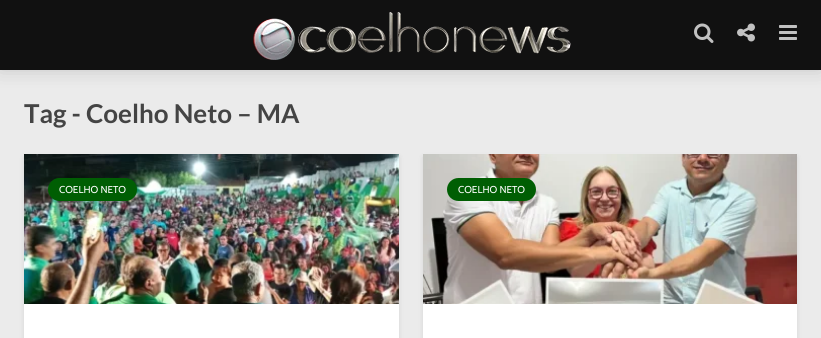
import math
import cairo


def round_path(ctx, x, y, w, h, r):
	ctx.new_sub_path()
	for i, (u, v) in enumerate([(x + w - r, y + h - r), (x + r, y + h - r), (x + r, y + r), (x + w - r, y + r)]):
		ctx.arc(u, v, r, i * math.pi / 2, (i + 1) * math.pi / 2)
	ctx.close_path()

def blur_box(ctx, x, y, w, h, r, blur, alpha):
	ctx.push_group_with_content(cairo.CONTENT_ALPHA)
	ctx.set_operator(cairo.OPERATOR_SOURCE)
	for i in range(15, -16, -2):
		e = blur * i / 6
		if min(w, h) + 2 * e > 0:
			ctx.set_source_rgba(0, 0, 0, alpha * math.erfc((i - 1) / 8.5) / 2)
			round_path(ctx, x - e, y - e, w + 2 * e, h + 2 * e, max(0, min(r + e + blur * .6, min(w, h) / 2 + e)))
			ctx.fill()
	ctx.mask(ctx.pop_group())

def paste(ctx, path, x, y, w, h):
	ctx.save()
	ctx.set_source_surface(cairo.ImageSurface.create_from_png(path), x, y)
	ctx.rectangle(x, y, w, h)
	ctx.fill()
	ctx.restore()

def draw(ctx):
	ctx.set_source_rgb(0.918, 0.918, 0.918)
	ctx.paint()
	ctx.set_source_rgb(0, 0, 0)
	blur_box(ctx, 0, 0, 821, 70, 0, 10, 0.15)
	ctx.set_source_rgb(0.067, 0.067, 0.067)
	ctx.rectangle(0, 0, 821, 70)
	ctx.fill()
	paste(ctx, 'media/1.png', 253, 12, 318, 48)
	paste(ctx, 'media/2.png', 694, 23, 20, 20)
	paste(ctx, 'media/3.png', 737, 23, 18, 19)
	paste(ctx, 'media/4.png', 779, 25, 18, 15)
	ctx.select_font_face('Lato', cairo.FONT_SLANT_NORMAL, cairo.FONT_WEIGHT_BOLD)
	ctx.set_font_size(26)
	ctx.set_source_rgb(0.267, 0.267, 0.267)
	ctx.move_to(24, 123)
	ctx.show_text('Tag - Coelho Neto – MA')
	ctx.set_source_rgb(0, 0.004, 0.004)
	blur_box(ctx, 24, 157, 375, 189, 0, 2.5, 0.1)
	ctx.set_source_rgb(1, 1, 1)
	ctx.rectangle(24, 304, 375, 34)
	ctx.fill()
	paste(ctx, 'media/5.png', 24, 154, 375, 150)
	ctx.set_source_rgb(0, 0.369, 0.012)
	round_path(ctx, 48, 178, 89, 23, 11.5)
	ctx.fill()
	ctx.select_font_face('Cabin')
	ctx.set_font_size(10)
	ctx.set_source_rgb(1, 1, 1)
	ctx.move_to(59, 193)
	ctx.show_text('COELHO NETO')
	ctx.set_source_rgb(0, 0.004, 0.004)
	blur_box(ctx, 423, 157, 374, 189, 0, 2.5, 0.1)
	ctx.set_source_rgb(1, 1, 1)
	ctx.rectangle(423, 304, 374, 34)
	ctx.fill()
	paste(ctx, 'media/6.png', 423, 154, 374, 150)
	ctx.set_source_rgb(0, 0.369, 0.012)
	round_path(ctx, 447, 178, 89, 23, 11.5)
	ctx.fill()
	ctx.set_source_rgb(1, 1, 1)
	ctx.move_to(458, 193)
	ctx.show_text('COELHO NETO')


surface = cairo.ImageSurface(cairo.FORMAT_RGB24, 821, 338)
ctx = cairo.Context(surface)
options = cairo.FontOptions()
options.set_hint_metrics(cairo.HINT_METRICS_OFF)
options.set_hint_style(cairo.HINT_STYLE_NONE)
ctx.set_font_options(options)
ctx.set_miter_limit(4)
draw(ctx)
surface.write_to_png('image.png')
